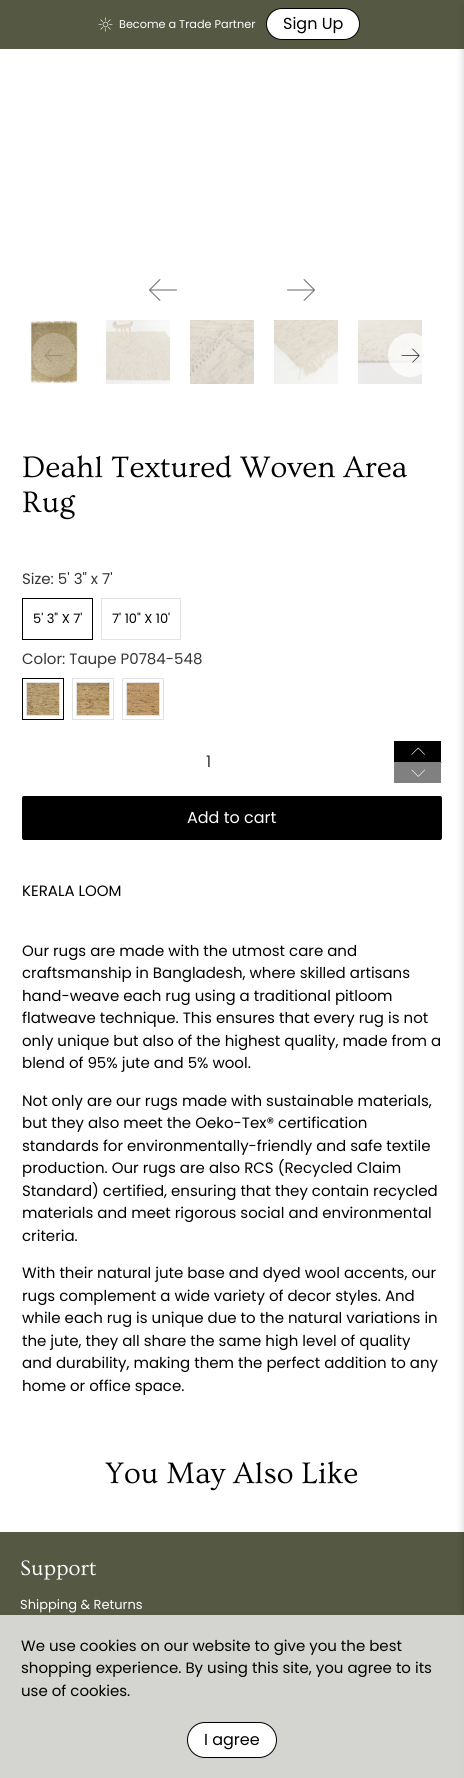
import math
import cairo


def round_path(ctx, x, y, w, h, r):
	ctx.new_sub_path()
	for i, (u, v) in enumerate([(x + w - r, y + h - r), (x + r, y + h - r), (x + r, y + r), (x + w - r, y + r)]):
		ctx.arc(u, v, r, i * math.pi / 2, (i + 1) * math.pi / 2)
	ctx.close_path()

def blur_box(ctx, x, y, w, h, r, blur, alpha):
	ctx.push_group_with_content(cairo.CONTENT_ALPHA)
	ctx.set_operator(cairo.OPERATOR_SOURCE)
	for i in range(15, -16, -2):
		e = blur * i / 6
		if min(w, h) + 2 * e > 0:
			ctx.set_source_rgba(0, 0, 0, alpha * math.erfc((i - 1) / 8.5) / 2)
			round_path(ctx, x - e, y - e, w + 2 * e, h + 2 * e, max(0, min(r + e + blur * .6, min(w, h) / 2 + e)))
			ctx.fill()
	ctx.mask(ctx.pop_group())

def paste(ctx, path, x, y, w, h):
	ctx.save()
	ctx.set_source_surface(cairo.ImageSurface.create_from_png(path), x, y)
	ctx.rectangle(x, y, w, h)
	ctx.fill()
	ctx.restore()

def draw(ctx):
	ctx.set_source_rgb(1, 1, 1)
	ctx.paint()
	ctx.set_source_rgb(0.333, 0.345, 0.263)
	ctx.rectangle(0, 1532, 464, 246)
	ctx.fill()
	ctx.set_source_rgb(0.039, 0.039, 0.039)
	blur_box(ctx, 464, 8, 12, 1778, 0, 4, 0.1)
	ctx.set_source_rgb(0.333, 0.345, 0.263)
	ctx.rectangle(0, 0, 464, 49)
	ctx.fill()
	paste(ctx, 'media/1.png', 98, 17, 15, 15)
	ctx.select_font_face('Poppins')
	ctx.set_font_size(11.25)
	ctx.set_source_rgb(1, 1, 1)
	ctx.move_to(119, 28)
	ctx.show_text('Become a Trade Partner')
	round_path(ctx, 266.5, 8.5, 93, 31, 15.5)
	ctx.fill_preserve()
	ctx.set_source_rgb(0, 0, 0)
	ctx.set_line_width(1)
	ctx.stroke()
	ctx.set_font_size(16)
	ctx.move_to(283, 29)
	ctx.show_text('Sign Up')
	ctx.set_source_rgb(0.039, 0.039, 0.039)
	blur_box(ctx, 464, 8, 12, 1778, 0, 4, 0.1)
	paste(ctx, 'media/2.png', 149, 279, 28, 22)
	paste(ctx, 'media/3.png', 287, 279, 28, 22)
	paste(ctx, 'media/4.png', 30, 320, 48, 64)
	paste(ctx, 'media/5.png', 106, 320, 64, 64)
	paste(ctx, 'media/6.png', 190, 320, 64, 64)
	paste(ctx, 'media/7.png', 274, 320, 64, 64)
	paste(ctx, 'media/8.png', 358, 320, 64, 64)
	ctx.set_source_rgba(1, 1, 1, 0.22)
	ctx.arc(54, 355, 22, 0, 2 * math.pi)
	ctx.fill()
	paste(ctx, 'media/9.png', 44, 348, 19, 15)
	ctx.set_source_rgba(1, 1, 1, 0.75)
	ctx.arc(410, 355, 22, 0, 2 * math.pi)
	ctx.fill()
	paste(ctx, 'media/10.png', 401, 348, 19, 15)
	ctx.select_font_face('Ovo')
	ctx.set_font_size(31)
	ctx.set_source_rgb(0, 0, 0)
	ctx.move_to(22, 477)
	ctx.show_text('Deahl Textured Woven Area')
	ctx.move_to(22, 512)
	ctx.show_text('Rug')
	ctx.select_font_face('Poppins')
	ctx.set_font_size(15)
	ctx.set_source_rgb(0.212, 0.212, 0.212)
	ctx.move_to(22, 584)
	ctx.show_text('Size: 5\' 3" x 7\'')
	ctx.rectangle(22.5, 598.5, 70, 41)
	ctx.set_source_rgb(0, 0, 0)
	ctx.stroke()
	ctx.set_font_size(13)
	ctx.move_to(33, 623)
	ctx.show_text('5\' 3" X 7\'')
	ctx.rectangle(101.5, 598.5, 79, 41)
	ctx.set_source_rgb(0.886, 0.886, 0.886)
	ctx.stroke()
	ctx.set_source_rgb(0, 0, 0)
	ctx.move_to(112, 623)
	ctx.show_text('7\' 10" X 10\'')
	ctx.set_font_size(15)
	ctx.set_source_rgb(0.212, 0.212, 0.212)
	ctx.move_to(22, 664)
	ctx.show_text('Color: Taupe P0784-548')
	ctx.rectangle(22.5, 678.5, 41, 41)
	ctx.set_source_rgb(0, 0, 0)
	ctx.stroke()
	ctx.rectangle(26.5, 682.5, 33, 33)
	ctx.set_source_rgb(0.886, 0.886, 0.886)
	ctx.stroke()
	paste(ctx, 'media/11.png', 27, 683, 32, 32)
	ctx.rectangle(72.5, 678.5, 41, 41)
	ctx.stroke()
	ctx.rectangle(76.5, 682.5, 33, 33)
	ctx.stroke()
	paste(ctx, 'media/12.png', 77, 683, 32, 32)
	ctx.rectangle(122.5, 678.5, 41, 41)
	ctx.stroke()
	ctx.rectangle(126.5, 682.5, 33, 33)
	ctx.stroke()
	paste(ctx, 'media/13.png', 127, 683, 32, 32)
	ctx.set_font_size(16)
	ctx.set_source_rgb(0.212, 0.212, 0.212)
	ctx.move_to(206, 767)
	ctx.show_text('1')
	ctx.set_source_rgb(0, 0, 0)
	ctx.rectangle(394, 741, 47, 21)
	ctx.fill()
	paste(ctx, 'media/14.png', 411, 747, 14, 8)
	ctx.set_source_rgb(0.502, 0.502, 0.502)
	ctx.rectangle(394, 762, 48, 21)
	ctx.fill()
	ctx.set_source_rgb(1, 1, 1)
	ctx.new_path()
	ctx.move_to(442, 762)
	ctx.line_to(442, 784)
	ctx.line_to(441, 783)
	ctx.line_to(441, 763)
	ctx.close_path()
	ctx.fill()
	paste(ctx, 'media/15.png', 411, 769, 14, 8)
	ctx.set_source_rgb(0, 0, 0)
	round_path(ctx, 22, 796, 420, 44, 2)
	ctx.fill()
	ctx.set_source_rgb(1, 1, 1)
	ctx.move_to(187, 823)
	ctx.show_text('Add to cart')
	ctx.set_font_size(15)
	ctx.set_source_rgb(0, 0, 0)
	for x, y, s in [
		(22, 896, 'KERALA LOOM'),
		(22, 956, 'Our rugs are made with the utmost care and'),
		(22, 978, 'craftsmanship in Bangladesh, where skilled artisans'),
		(22, 1001, 'hand-weave each rug using a traditional pitloom'),
		(22, 1023, 'flatweave technique. This ensures that every rug is not'),
		(22, 1046, 'only unique but also of the highest quality, made from a'),
		(22, 1068, 'blend of 95% jute and 5% wool.'),
		(22, 1106, 'Not only are our rugs made with sustainable materials,'),
		(22, 1128, 'but they also meet the Oeko-Tex® certification'),
		(22, 1151, 'standards for environmentally-friendly and safe textile'),
		(22, 1173, 'production. Our rugs are also RCS (Recycled Claim'),
		(22, 1196, 'Standard) certified, ensuring that they contain recycled'),
		(22, 1218, 'materials and meet rigorous social and environmental'),
		(22, 1241, 'criteria.'),
		(22, 1278, 'With their natural jute base and dyed wool accents, our'),
		(22, 1301, 'rugs complement a wide variety of decor styles. And'),
		(22, 1323, 'while each rug is unique due to the natural variations in'),
		(22, 1346, 'the jute, they all share the same high level of quality'),
		(22, 1368, 'and durability, making them the perfect addition to any'),
		(22, 1391, 'home or office space.'),
	]:
		ctx.move_to(x, y)
		ctx.show_text(s)
	ctx.select_font_face('Ovo')
	ctx.set_font_size(31)
	ctx.move_to(105, 1483)
	ctx.show_text('You May Also Like')
	ctx.set_font_size(22)
	ctx.set_source_rgb(1, 1, 1)
	ctx.move_to(20, 1575)
	ctx.show_text('Support')
	ctx.select_font_face('Poppins')
	ctx.set_font_size(13)
	ctx.move_to(20, 1609)
	ctx.show_text('Shipping & Returns')
	ctx.set_source_rgba(1, 1, 1, 0.75)
	ctx.rectangle(0, 1615, 464, 163)
	ctx.fill()
	ctx.set_font_size(15)
	ctx.set_source_rgb(0, 0, 0)
	for x, y, s in [
		(21, 1651, 'We use cookies on our website to give you the best'),
		(21, 1673, 'shopping experience. By using this site, you agree to its'),
		(21, 1696, 'use of cookies.'),
	]:
		ctx.move_to(x, y)
		ctx.show_text(s)
	ctx.set_source_rgb(1, 1, 1)
	round_path(ctx, 187.5, 1722.5, 89, 35, 17.5)
	ctx.fill_preserve()
	ctx.set_source_rgb(0, 0, 0)
	ctx.stroke()
	ctx.set_font_size(16)
	ctx.move_to(204, 1745)
	ctx.show_text('I agree')


surface = cairo.ImageSurface(cairo.FORMAT_RGB24, 464, 1778)
ctx = cairo.Context(surface)
options = cairo.FontOptions()
options.set_hint_metrics(cairo.HINT_METRICS_OFF)
options.set_hint_style(cairo.HINT_STYLE_NONE)
ctx.set_font_options(options)
ctx.set_miter_limit(4)
draw(ctx)
surface.write_to_png('image.png')
